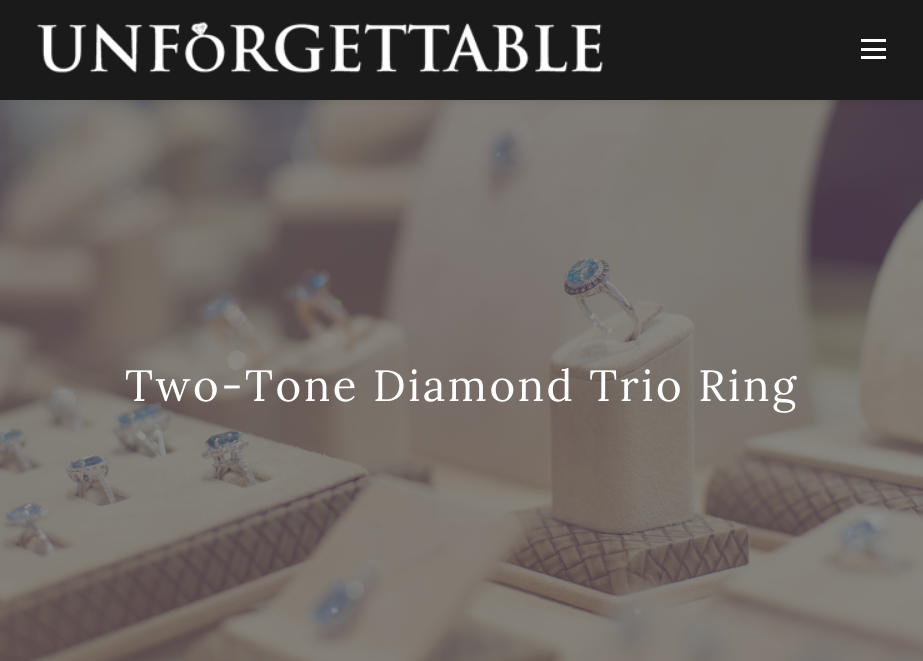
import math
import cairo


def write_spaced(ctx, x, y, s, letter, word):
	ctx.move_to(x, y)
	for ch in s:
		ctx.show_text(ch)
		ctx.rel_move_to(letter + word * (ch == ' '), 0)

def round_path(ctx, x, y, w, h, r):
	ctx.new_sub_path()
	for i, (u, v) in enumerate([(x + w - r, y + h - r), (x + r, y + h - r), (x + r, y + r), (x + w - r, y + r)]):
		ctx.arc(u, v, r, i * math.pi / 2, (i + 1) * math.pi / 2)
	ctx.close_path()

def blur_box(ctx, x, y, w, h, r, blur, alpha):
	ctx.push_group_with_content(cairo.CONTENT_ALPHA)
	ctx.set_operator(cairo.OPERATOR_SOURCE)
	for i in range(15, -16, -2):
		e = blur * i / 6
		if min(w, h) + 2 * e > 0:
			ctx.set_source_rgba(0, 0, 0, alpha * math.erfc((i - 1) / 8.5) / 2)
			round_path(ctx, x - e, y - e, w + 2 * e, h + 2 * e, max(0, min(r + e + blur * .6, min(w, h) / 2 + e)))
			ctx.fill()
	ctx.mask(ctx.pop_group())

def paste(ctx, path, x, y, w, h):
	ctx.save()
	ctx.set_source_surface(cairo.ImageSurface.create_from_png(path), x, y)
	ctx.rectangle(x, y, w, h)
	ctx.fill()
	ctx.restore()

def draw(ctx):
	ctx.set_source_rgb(1, 1, 1)
	ctx.paint()
	paste(ctx, 'media/2.png', 0, 100, 923, 561)
	ctx.set_source_rgb(0, 0, 0)
	blur_box(ctx, 0, 1, 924, 100, 0, 5, 0.1)
	ctx.set_source_rgb(0.102, 0.102, 0.102)
	ctx.rectangle(0, 0, 923, 100)
	ctx.fill()
	paste(ctx, 'media/1.png', 37, 22, 566, 51)
	ctx.set_source_rgb(1, 1, 1)
	ctx.rectangle(861, 48, 25, 3)
	ctx.rectangle(861, 39, 25, 3)
	ctx.rectangle(861, 56, 25, 3)
	ctx.fill()
	ctx.select_font_face('Lora')
	ctx.set_font_size(43.75)
	write_spaced(ctx, 125, 401, 'Two-Tone Diamond Trio Ring', 2.5, 0)


surface = cairo.ImageSurface(cairo.FORMAT_RGB24, 923, 661)
ctx = cairo.Context(surface)
options = cairo.FontOptions()
options.set_hint_metrics(cairo.HINT_METRICS_OFF)
options.set_hint_style(cairo.HINT_STYLE_NONE)
ctx.set_font_options(options)
ctx.set_miter_limit(4)
draw(ctx)
surface.write_to_png('image.png')
